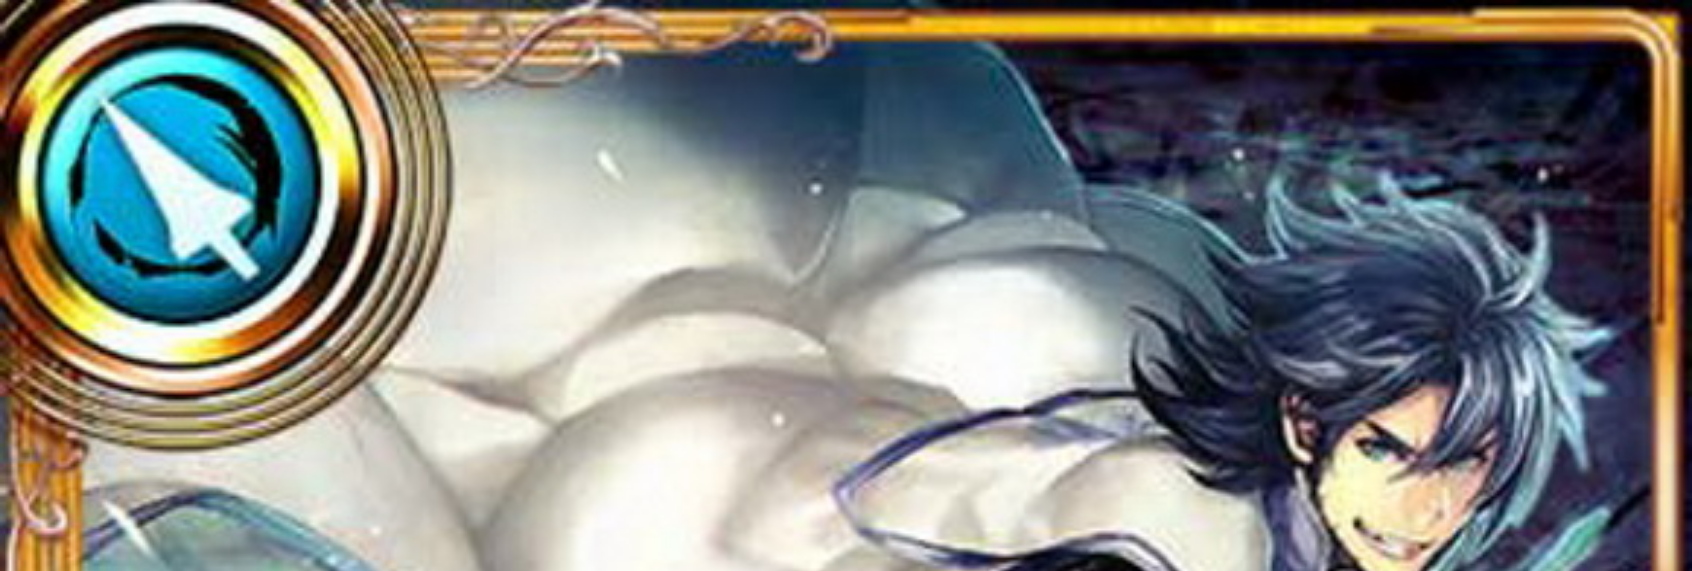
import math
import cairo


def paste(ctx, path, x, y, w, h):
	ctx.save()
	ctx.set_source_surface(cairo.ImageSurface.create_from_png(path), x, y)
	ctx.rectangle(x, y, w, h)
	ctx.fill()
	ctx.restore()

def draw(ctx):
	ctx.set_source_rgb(1, 1, 1)
	ctx.paint()
	paste(ctx, 'media/1.png', 0, 0, 1692, 571)


surface = cairo.ImageSurface(cairo.FORMAT_RGB24, 1692, 571)
ctx = cairo.Context(surface)
options = cairo.FontOptions()
options.set_hint_metrics(cairo.HINT_METRICS_OFF)
options.set_hint_style(cairo.HINT_STYLE_NONE)
ctx.set_font_options(options)
ctx.set_miter_limit(4)
draw(ctx)
surface.write_to_png('image.png')
